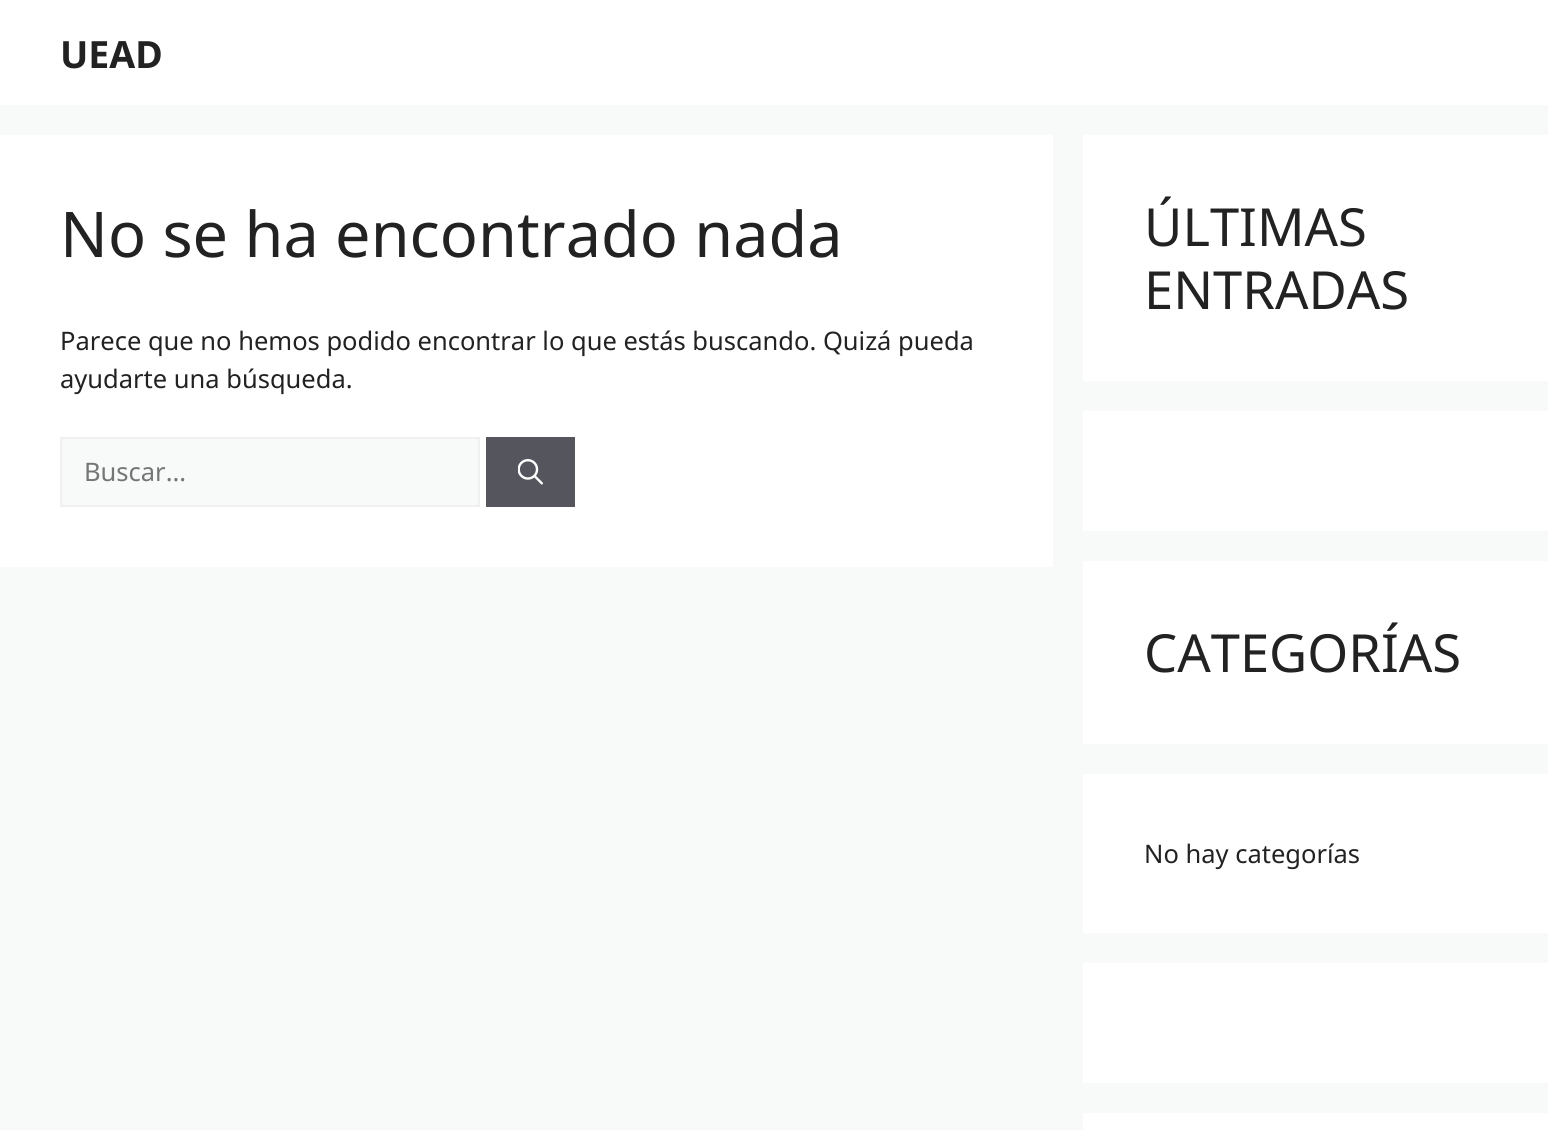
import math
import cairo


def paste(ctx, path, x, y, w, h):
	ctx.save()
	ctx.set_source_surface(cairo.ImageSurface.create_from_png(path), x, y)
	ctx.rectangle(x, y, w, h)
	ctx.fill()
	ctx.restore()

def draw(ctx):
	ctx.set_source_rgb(0.969, 0.973, 0.976)
	ctx.paint()
	ctx.set_source_rgb(1, 1, 1)
	ctx.rectangle(0, 0, 1548, 105)
	ctx.fill()
	ctx.select_font_face('Noto Sans', cairo.FONT_SLANT_NORMAL, cairo.FONT_WEIGHT_BOLD)
	ctx.set_font_size(37.5)
	ctx.set_source_rgb(0.133, 0.133, 0.133)
	ctx.move_to(60, 68)
	ctx.show_text('UEAD')
	ctx.set_source_rgb(1, 1, 1)
	ctx.rectangle(0, 135, 1053, 432)
	ctx.fill()
	ctx.select_font_face('Noto Sans')
	ctx.set_font_size(63)
	ctx.set_source_rgb(0.133, 0.133, 0.133)
	ctx.move_to(60, 257)
	ctx.show_text('No se ha encontrado nada')
	ctx.set_font_size(25.5)
	ctx.move_to(60, 350)
	ctx.show_text('Parece que no hemos podido encontrar lo que estás buscando. Quizá pueda')
	ctx.move_to(60, 388)
	ctx.show_text('ayudarte una búsqueda.')
	ctx.set_source_rgb(0.969, 0.973, 0.976)
	ctx.rectangle(61, 438, 418, 68)
	ctx.fill_preserve()
	ctx.set_source_rgb(0.941, 0.941, 0.941)
	ctx.stroke()
	ctx.set_source_rgb(0.459, 0.459, 0.459)
	ctx.move_to(84, 481)
	ctx.show_text('Buscar...')
	ctx.set_source_rgb(0.333, 0.333, 0.369)
	ctx.rectangle(486, 437, 89, 70)
	ctx.fill()
	paste(ctx, 'media/1.png', 518, 459, 25, 26)
	ctx.set_source_rgb(1, 1, 1)
	ctx.rectangle(1083, 135, 465, 246)
	ctx.fill()
	ctx.set_font_size(52.5)
	ctx.set_source_rgb(0.133, 0.133, 0.133)
	ctx.move_to(1144, 246)
	ctx.show_text('ÚLTIMAS')
	ctx.move_to(1144, 309)
	ctx.show_text('ENTRADAS')
	ctx.set_source_rgb(1, 1, 1)
	ctx.rectangle(1083, 411, 465, 120)
	ctx.fill()
	ctx.rectangle(1083, 561, 465, 183)
	ctx.fill()
	ctx.set_source_rgb(0.133, 0.133, 0.133)
	ctx.move_to(1144, 672)
	ctx.show_text('CATEGORÍAS')
	ctx.set_source_rgb(1, 1, 1)
	ctx.rectangle(1083, 774, 465, 159)
	ctx.fill()
	ctx.set_font_size(25.5)
	ctx.set_source_rgb(0.133, 0.133, 0.133)
	ctx.move_to(1144, 863)
	ctx.show_text('No hay categorías')
	ctx.set_source_rgb(1, 1, 1)
	ctx.rectangle(1083, 963, 465, 120)
	ctx.fill()
	ctx.rectangle(1083, 1113, 465, 17)
	ctx.fill()


surface = cairo.ImageSurface(cairo.FORMAT_RGB24, 1548, 1130)
ctx = cairo.Context(surface)
options = cairo.FontOptions()
options.set_hint_metrics(cairo.HINT_METRICS_OFF)
options.set_hint_style(cairo.HINT_STYLE_NONE)
ctx.set_font_options(options)
ctx.set_miter_limit(4)
draw(ctx)
surface.write_to_png('image.png')
